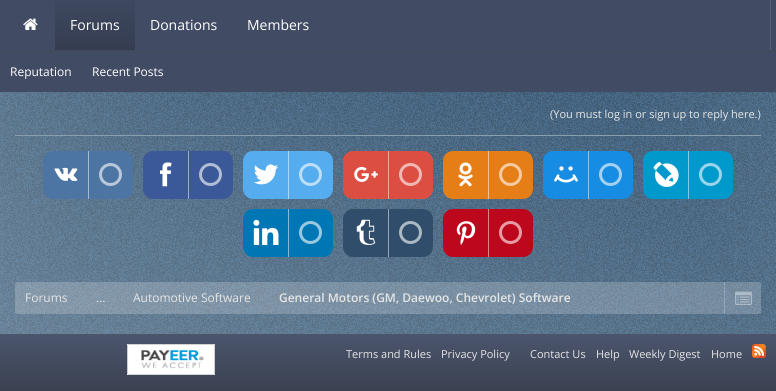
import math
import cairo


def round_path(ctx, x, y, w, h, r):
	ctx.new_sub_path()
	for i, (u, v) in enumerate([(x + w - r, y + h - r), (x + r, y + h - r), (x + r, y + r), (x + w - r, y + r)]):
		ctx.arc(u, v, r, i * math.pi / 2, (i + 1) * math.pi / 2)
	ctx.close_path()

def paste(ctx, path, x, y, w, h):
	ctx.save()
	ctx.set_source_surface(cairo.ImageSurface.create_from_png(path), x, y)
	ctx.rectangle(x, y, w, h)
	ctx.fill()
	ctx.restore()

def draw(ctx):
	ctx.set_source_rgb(1, 1, 1)
	ctx.paint()
	paste(ctx, 'media/1.png', 0, 92, 776, 242)
	ctx.set_source_rgb(0.255, 0.298, 0.392)
	ctx.rectangle(0, 0, 776, 92)
	ctx.fill()
	paste(ctx, 'media/2.png', 23, 18, 15, 12)
	ctx.select_font_face('Open Sans')
	ctx.set_font_size(14)
	ctx.set_source_rgb(1, 1, 1)
	ctx.move_to(150, 30)
	ctx.show_text('Donations')
	ctx.move_to(247, 30)
	ctx.show_text('Members')
	gradient = cairo.LinearGradient(95, 0, 95, 50)
	gradient.add_color_stop_rgba(0, 0.243, 0.282, 0.373, 1)
	gradient.add_color_stop_rgba(1, 0.204, 0.239, 0.314, 1)
	ctx.set_source(gradient)
	ctx.rectangle(55, 0, 80, 50)
	ctx.fill()
	ctx.set_source_rgb(1, 1, 1)
	ctx.move_to(70, 30)
	ctx.show_text('Forums')
	ctx.set_source_rgb(0.259, 0.29, 0.357)
	ctx.rectangle(0, 50, 776, 2)
	ctx.fill()
	ctx.set_font_size(12)
	ctx.set_source_rgb(1, 1, 1)
	ctx.move_to(10, 76)
	ctx.show_text('Reputation')
	ctx.move_to(92, 76)
	ctx.show_text('Recent Posts')
	ctx.set_source_rgb(0.329, 0.369, 0.455)
	ctx.rectangle(770, 0, 1, 50)
	ctx.fill()
	ctx.set_font_size(11)
	ctx.set_source_rgb(0.898, 0.898, 0.898)
	ctx.move_to(550, 118)
	ctx.show_text('(You must log in or sign up to reply here.)')
	ctx.set_source_rgb(0.537, 0.624, 0.682)
	ctx.rectangle(15, 135, 746, 1)
	ctx.fill()
	ctx.set_source_rgb(0.302, 0.459, 0.639)
	round_path(ctx, 43, 151, 90, 48, 10)
	ctx.fill()
	paste(ctx, 'media/3.png', 54, 167, 24, 14)
	ctx.set_source_rgb(0.651, 0.729, 0.82)
	ctx.rectangle(88, 151, 1, 48)
	ctx.fill()
	ctx.arc(110.5, 174.5, 10, 0, 2 * math.pi)
	ctx.set_source_rgb(0.722, 0.784, 0.855)
	ctx.set_line_width(3)
	ctx.stroke()
	ctx.set_source_rgb(0.231, 0.349, 0.596)
	round_path(ctx, 143, 151, 90, 48, 10)
	ctx.fill()
	paste(ctx, 'media/4.png', 160, 162, 12, 25)
	ctx.set_source_rgb(0.616, 0.675, 0.8)
	ctx.rectangle(188, 151, 1, 48)
	ctx.fill()
	ctx.arc(210.5, 174.5, 10, 0, 2 * math.pi)
	ctx.set_source_rgb(0.694, 0.741, 0.839)
	ctx.stroke()
	ctx.set_source_rgb(0.333, 0.675, 0.933)
	round_path(ctx, 243, 151, 90, 48, 10)
	ctx.fill()
	paste(ctx, 'media/5.png', 254, 164, 25, 21)
	ctx.set_source_rgb(0.667, 0.839, 0.969)
	ctx.rectangle(288, 151, 1, 48)
	ctx.fill()
	ctx.arc(310.5, 174.5, 10, 0, 2 * math.pi)
	ctx.set_source_rgb(0.733, 0.871, 0.973)
	ctx.stroke()
	ctx.set_source_rgb(0.863, 0.306, 0.255)
	round_path(ctx, 343, 151, 90, 48, 10)
	ctx.fill()
	paste(ctx, 'media/6.png', 354, 166, 24, 16)
	ctx.set_source_rgb(0.933, 0.655, 0.627)
	ctx.rectangle(388, 151, 1, 48)
	ctx.fill()
	ctx.arc(410.5, 174.5, 10, 0, 2 * math.pi)
	ctx.set_source_rgb(0.945, 0.722, 0.702)
	ctx.stroke()
	ctx.set_source_rgb(0.902, 0.494, 0.09)
	round_path(ctx, 443, 151, 90, 48, 10)
	ctx.fill()
	paste(ctx, 'media/7.png', 458, 162, 15, 25)
	ctx.set_source_rgb(0.953, 0.749, 0.545)
	ctx.rectangle(488, 151, 1, 48)
	ctx.fill()
	ctx.arc(510.5, 174.5, 10, 0, 2 * math.pi)
	ctx.set_source_rgb(0.961, 0.796, 0.635)
	ctx.stroke()
	ctx.set_source_rgb(0.086, 0.553, 0.886)
	round_path(ctx, 543, 151, 90, 48, 10)
	ctx.fill()
	paste(ctx, 'media/8.png', 554, 166, 24, 17)
	ctx.set_source_rgb(0.545, 0.776, 0.945)
	ctx.rectangle(588, 151, 1, 48)
	ctx.fill()
	ctx.arc(610.5, 174.5, 10, 0, 2 * math.pi)
	ctx.set_source_rgb(0.635, 0.82, 0.953)
	ctx.stroke()
	ctx.set_source_rgb(0, 0.6, 0.8)
	round_path(ctx, 643, 151, 90, 48, 10)
	ctx.fill()
	paste(ctx, 'media/9.png', 653, 161, 26, 26)
	ctx.set_source_rgb(0.502, 0.8, 0.902)
	ctx.rectangle(688, 151, 1, 48)
	ctx.fill()
	ctx.arc(710.5, 174.5, 10, 0, 2 * math.pi)
	ctx.set_source_rgb(0.6, 0.839, 0.922)
	ctx.stroke()
	ctx.set_source_rgb(0, 0.467, 0.71)
	round_path(ctx, 243, 209, 90, 48, 10)
	ctx.fill()
	paste(ctx, 'media/10.png', 253, 219, 26, 26)
	ctx.set_source_rgb(0.502, 0.733, 0.855)
	ctx.rectangle(288, 209, 1, 48)
	ctx.fill()
	ctx.arc(310.5, 232.5, 10, 0, 2 * math.pi)
	ctx.set_source_rgb(0.6, 0.788, 0.882)
	ctx.stroke()
	ctx.set_source_rgb(0.188, 0.306, 0.424)
	round_path(ctx, 343, 209, 90, 48, 10)
	ctx.fill()
	paste(ctx, 'media/11.png', 356, 219, 20, 26)
	ctx.set_source_rgb(0.596, 0.655, 0.714)
	ctx.rectangle(388, 209, 1, 48)
	ctx.fill()
	ctx.arc(410.5, 232.5, 10, 0, 2 * math.pi)
	ctx.set_source_rgb(0.675, 0.722, 0.769)
	ctx.stroke()
	ctx.set_source_rgb(0.741, 0.031, 0.11)
	round_path(ctx, 443, 209, 90, 48, 10)
	ctx.fill()
	paste(ctx, 'media/12.png', 456, 221, 20, 24)
	ctx.set_source_rgb(0.871, 0.518, 0.557)
	ctx.rectangle(488, 209, 1, 48)
	ctx.fill()
	ctx.arc(510.5, 232.5, 10, 0, 2 * math.pi)
	ctx.set_source_rgb(0.898, 0.612, 0.643)
	ctx.stroke()
	ctx.set_source_rgba(1, 1, 1, 0.2)
	round_path(ctx, 15, 282, 746, 32, 2)
	ctx.fill()
	ctx.set_font_size(12)
	ctx.set_source_rgb(0.898, 0.898, 0.898)
	for x, y, s in [
		(25, 302, 'Forums'),
		(96, 302, '...'),
		(133, 302, 'Automotive Software'),
	]:
		ctx.move_to(x, y)
		ctx.show_text(s)
	ctx.select_font_face('Open Sans SemiBold')
	ctx.move_to(279, 302)
	ctx.show_text('General Motors (GM, Daewoo, Chevrolet) Software')
	ctx.set_source_rgba(1, 1, 1, 0.2)
	ctx.rectangle(724, 282, 1, 31)
	ctx.fill()
	paste(ctx, 'media/13.png', 735, 291, 17, 14)
	gradient = cairo.LinearGradient(388, 334, 388, 391)
	gradient.add_color_stop_rgba(0, 0.294, 0.333, 0.424, 1)
	gradient.add_color_stop_rgba(1, 0.227, 0.255, 0.318, 1)
	ctx.set_source(gradient)
	ctx.rectangle(0, 334, 776, 57)
	ctx.fill()
	paste(ctx, 'media/14.png', 127, 344, 88, 31)
	ctx.select_font_face('Open Sans')
	ctx.set_font_size(11)
	ctx.set_source_rgb(0.898, 0.898, 0.898)
	for x, y, s in [
		(346, 358, 'Terms and Rules'),
		(441, 358, 'Privacy Policy'),
		(530, 358, 'Contact Us'),
		(596, 358, 'Help'),
		(629, 358, 'Weekly Digest'),
		(711, 358, 'Home'),
	]:
		ctx.move_to(x, y)
		ctx.show_text(s)
	paste(ctx, 'media/15.png', 752, 344, 14, 14)


surface = cairo.ImageSurface(cairo.FORMAT_RGB24, 776, 391)
ctx = cairo.Context(surface)
options = cairo.FontOptions()
options.set_hint_metrics(cairo.HINT_METRICS_OFF)
options.set_hint_style(cairo.HINT_STYLE_NONE)
ctx.set_font_options(options)
ctx.set_miter_limit(4)
draw(ctx)
surface.write_to_png('image.png')
